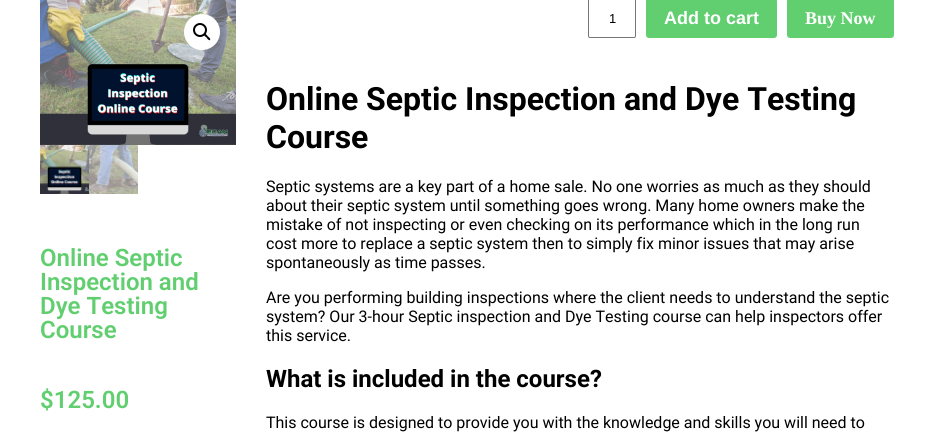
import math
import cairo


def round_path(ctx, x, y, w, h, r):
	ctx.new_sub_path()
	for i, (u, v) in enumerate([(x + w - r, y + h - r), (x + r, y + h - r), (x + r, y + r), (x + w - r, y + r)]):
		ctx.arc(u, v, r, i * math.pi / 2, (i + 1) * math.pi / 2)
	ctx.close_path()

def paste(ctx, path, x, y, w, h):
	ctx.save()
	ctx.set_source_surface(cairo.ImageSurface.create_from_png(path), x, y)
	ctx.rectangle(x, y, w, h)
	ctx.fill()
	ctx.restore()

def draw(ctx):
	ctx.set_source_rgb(1, 1, 1)
	ctx.paint()
	paste(ctx, 'media/1.png', 40, 0, 196, 145)
	ctx.set_source_rgb(1, 1, 1)
	ctx.arc(202, 32, 18, 0, 2 * math.pi)
	ctx.fill()
	ctx.arc(200, 30, 6, 0, 2 * math.pi)
	ctx.set_source_rgb(0, 0, 0)
	ctx.stroke()
	ctx.new_path()
	ctx.move_to(204.5, 34)
	ctx.curve_to(205.5, 33, 207, 35.5, 208, 36.5)
	ctx.curve_to(208.5, 37, 211, 38.5, 210, 40)
	ctx.curve_to(209, 41, 207, 38.5, 206.5, 37.5)
	ctx.curve_to(206, 37, 203, 35.5, 204.5, 34)
	ctx.close_path()
	ctx.fill()
	paste(ctx, 'media/2.png', 40, 145, 49, 49)
	paste(ctx, 'media/3.png', 89, 145, 49, 49)
	ctx.select_font_face('Roboto SemiBold')
	ctx.set_font_size(24)
	ctx.set_source_rgb(0.38, 0.808, 0.439)
	for x, y, s in [
		(40, 266, 'Online Septic'),
		(40, 290, 'Inspection and'),
		(40, 314, 'Dye Testing'),
		(40, 338, 'Course'),
		(40, 408, '$125.00'),
	]:
		ctx.move_to(x, y)
		ctx.show_text(s)
	round_path(ctx, 588.5, -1.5, 47, 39, 1.5)
	ctx.set_source_rgb(0.463, 0.463, 0.463)
	ctx.set_line_width(1)
	ctx.stroke()
	ctx.select_font_face('Liberation Sans')
	ctx.set_font_size(13)
	ctx.set_source_rgb(0, 0, 0)
	ctx.move_to(609, 23)
	ctx.show_text('1')
	ctx.set_source_rgb(0.38, 0.808, 0.439)
	round_path(ctx, 646, -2, 131, 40, 3)
	ctx.fill()
	ctx.select_font_face('Liberation Sans', cairo.FONT_SLANT_NORMAL, cairo.FONT_WEIGHT_BOLD)
	ctx.set_font_size(18)
	ctx.set_source_rgb(1, 1, 1)
	ctx.move_to(664, 24)
	ctx.show_text('Add to cart')
	ctx.set_source_rgb(0.38, 0.808, 0.439)
	round_path(ctx, 787, -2, 107, 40, 3)
	ctx.fill()
	ctx.select_font_face('Liberation Serif', cairo.FONT_SLANT_NORMAL, cairo.FONT_WEIGHT_BOLD)
	ctx.set_source_rgb(1, 1, 1)
	ctx.move_to(805, 24)
	ctx.show_text('Buy Now')
	ctx.select_font_face('Roboto', cairo.FONT_SLANT_NORMAL, cairo.FONT_WEIGHT_BOLD)
	ctx.set_font_size(32)
	ctx.set_source_rgb(0, 0, 0)
	ctx.move_to(266, 110)
	ctx.show_text('Online Septic Inspection and Dye Testing')
	ctx.move_to(266, 148)
	ctx.show_text('Course')
	ctx.select_font_face('Roboto')
	ctx.set_font_size(16)
	for x, y, s in [
		(266, 192, 'Septic systems are a key part of a home sale. No one worries as much as they should'),
		(266, 211, 'about their septic system until something goes wrong. Many home owners make the'),
		(266, 230, 'mistake of not inspecting or even checking on its performance which in the long run'),
		(266, 249, 'cost more to replace a septic system then to simply fix minor issues that may arise'),
		(266, 268, 'spontaneously as time passes.'),
		(266, 303, 'Are you performing building inspections where the client needs to understand the septic'),
		(266, 322, 'system? Our 3-hour Septic inspection and Dye Testing course can help inspectors offer'),
		(266, 341, 'this service.'),
	]:
		ctx.move_to(x, y)
		ctx.show_text(s)
	ctx.select_font_face('Roboto', cairo.FONT_SLANT_NORMAL, cairo.FONT_WEIGHT_BOLD)
	ctx.set_font_size(24)
	ctx.move_to(266, 387)
	ctx.show_text('What is included in the course?')
	ctx.select_font_face('Roboto')
	ctx.set_font_size(16)
	ctx.move_to(266, 428)
	ctx.show_text('This course is designed to provide you with the knowledge and skills you will need to')


surface = cairo.ImageSurface(cairo.FORMAT_RGB24, 934, 442)
ctx = cairo.Context(surface)
options = cairo.FontOptions()
options.set_hint_metrics(cairo.HINT_METRICS_OFF)
options.set_hint_style(cairo.HINT_STYLE_NONE)
ctx.set_font_options(options)
ctx.set_miter_limit(4)
draw(ctx)
surface.write_to_png('image.png')
